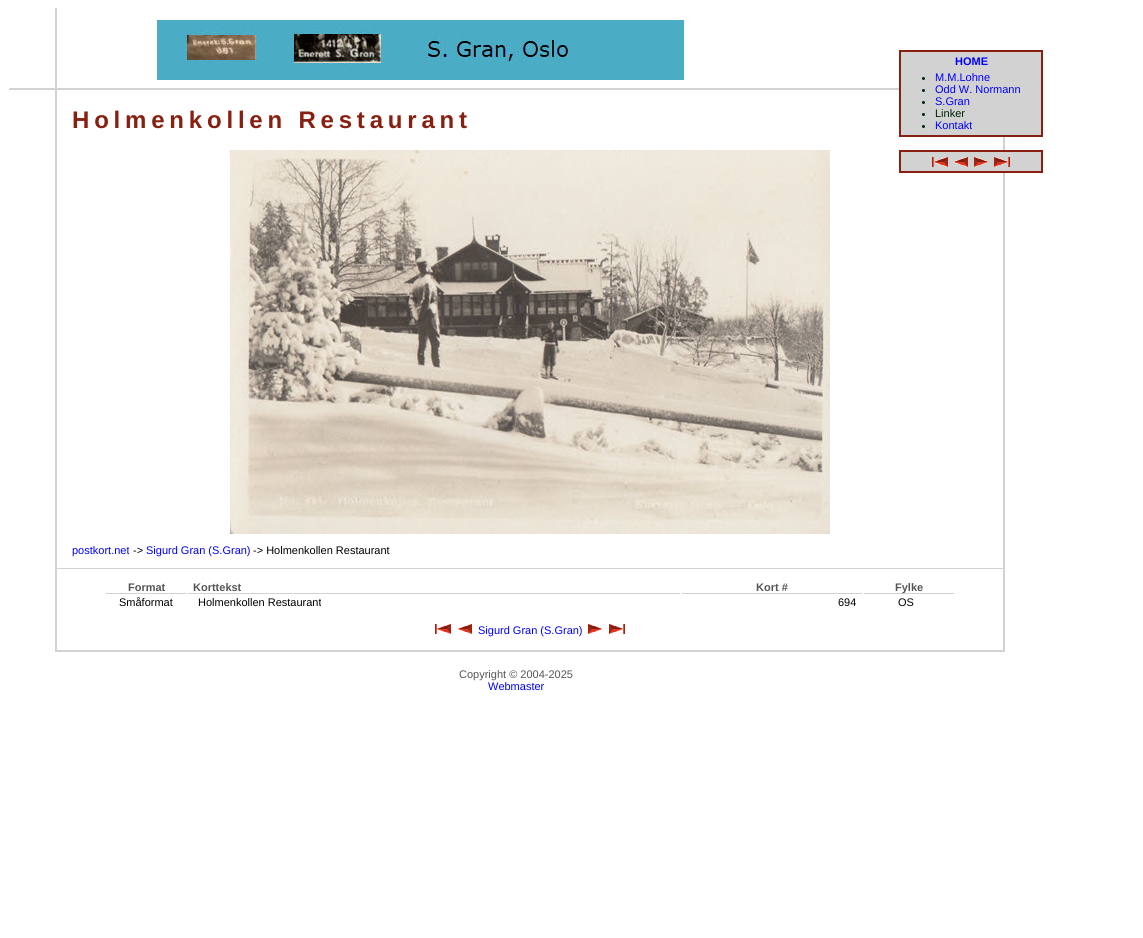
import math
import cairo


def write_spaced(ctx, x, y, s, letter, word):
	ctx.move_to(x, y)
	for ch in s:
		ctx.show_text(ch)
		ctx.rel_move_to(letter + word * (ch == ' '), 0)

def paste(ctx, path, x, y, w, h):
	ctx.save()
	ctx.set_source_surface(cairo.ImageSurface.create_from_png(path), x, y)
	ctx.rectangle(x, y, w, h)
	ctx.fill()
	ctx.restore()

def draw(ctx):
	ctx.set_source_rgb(1, 1, 1)
	ctx.paint()
	ctx.rectangle(56, 89, 948, 562)
	ctx.set_source_rgb(0.824, 0.824, 0.824)
	ctx.stroke()
	ctx.rectangle(55, 8, 2, 82)
	ctx.fill()
	ctx.rectangle(9, 88, 48, 2)
	ctx.fill()
	paste(ctx, 'media/1.png', 157, 20, 527, 60)
	ctx.rectangle(900, 51, 142, 85)
	ctx.fill_preserve()
	ctx.set_source_rgb(0.533, 0.125, 0.067)
	ctx.stroke()
	ctx.select_font_face('Liberation Sans', cairo.FONT_SLANT_NORMAL, cairo.FONT_WEIGHT_BOLD)
	ctx.set_font_size(11)
	ctx.set_source_rgb(0, 0, 1)
	ctx.move_to(955, 65)
	ctx.show_text('HOME')
	ctx.set_source_rgb(0.004, 0.125, 0)
	ctx.new_path()
	ctx.arc(923.5, 78.5, 1.5, 0, 2 * math.pi)
	ctx.fill()
	ctx.select_font_face('Liberation Sans')
	ctx.set_source_rgb(0, 0, 1)
	ctx.move_to(935, 81)
	ctx.show_text('M.M.Lohne')
	ctx.set_source_rgb(0.004, 0.125, 0)
	ctx.new_path()
	ctx.arc(923.5, 90.5, 1.5, 0, 2 * math.pi)
	ctx.fill()
	ctx.set_source_rgb(0, 0, 1)
	ctx.move_to(935, 93)
	ctx.show_text('Odd W. Normann')
	ctx.set_source_rgb(0.004, 0.125, 0)
	ctx.new_path()
	ctx.arc(923.5, 102.5, 1.5, 0, 2 * math.pi)
	ctx.fill()
	ctx.set_source_rgb(0, 0, 1)
	ctx.move_to(935, 105)
	ctx.show_text('S.Gran')
	ctx.set_source_rgb(0.004, 0.125, 0)
	ctx.new_path()
	ctx.arc(923.5, 114.5, 1.5, 0, 2 * math.pi)
	ctx.fill()
	ctx.move_to(935, 117)
	ctx.show_text('Linker')
	ctx.new_path()
	ctx.arc(923.5, 126.5, 1.5, 0, 2 * math.pi)
	ctx.fill()
	ctx.set_source_rgb(0, 0, 1)
	ctx.move_to(935, 129)
	ctx.show_text('Kontakt')
	ctx.set_source_rgb(0.824, 0.824, 0.824)
	ctx.rectangle(900, 151, 142, 21)
	ctx.fill_preserve()
	ctx.set_source_rgb(0.533, 0.125, 0.067)
	ctx.stroke()
	paste(ctx, 'media/2.png', 932, 157, 16, 10)
	paste(ctx, 'media/3.png', 954, 157, 14, 10)
	paste(ctx, 'media/4.png', 974, 157, 14, 10)
	paste(ctx, 'media/5.png', 994, 157, 16, 10)
	ctx.set_source_rgb(0, 0, 1)
	ctx.move_to(72, 554)
	ctx.show_text('postkort.net')
	ctx.set_source_rgb(0, 0, 0)
	ctx.move_to(133, 554)
	ctx.show_text('->')
	ctx.set_source_rgb(0, 0, 1)
	ctx.move_to(146, 554)
	ctx.show_text('Sigurd Gran (S.Gran)')
	ctx.set_source_rgb(0, 0, 0)
	ctx.move_to(253, 554)
	ctx.show_text('-> Holmenkollen Restaurant')
	ctx.set_source_rgb(0.824, 0.824, 0.824)
	ctx.rectangle(57, 568, 946, 1)
	ctx.fill()
	ctx.rectangle(106, 593, 80, 1)
	ctx.fill()
	ctx.select_font_face('Liberation Sans', cairo.FONT_SLANT_NORMAL, cairo.FONT_WEIGHT_BOLD)
	ctx.set_source_rgb(0.333, 0.333, 0.333)
	ctx.move_to(128, 591)
	ctx.show_text('Format')
	ctx.set_source_rgb(0.824, 0.824, 0.824)
	ctx.rectangle(188, 593, 492, 1)
	ctx.fill()
	ctx.set_source_rgb(0.333, 0.333, 0.333)
	ctx.move_to(193, 591)
	ctx.show_text('Korttekst')
	ctx.set_source_rgb(0.824, 0.824, 0.824)
	ctx.rectangle(682, 593, 180, 1)
	ctx.fill()
	ctx.set_source_rgb(0.333, 0.333, 0.333)
	ctx.move_to(756, 591)
	ctx.show_text('Kort #')
	ctx.set_source_rgb(0.824, 0.824, 0.824)
	ctx.rectangle(864, 593, 90, 1)
	ctx.fill()
	ctx.set_source_rgb(0.333, 0.333, 0.333)
	ctx.move_to(895, 591)
	ctx.show_text('Fylke')
	ctx.select_font_face('Liberation Sans')
	ctx.set_source_rgb(0, 0, 0)
	for x, y, s in [
		(119, 606, 'Småformat'),
		(198, 606, 'Holmenkollen Restaurant'),
		(838, 606, '694'),
		(898, 606, 'OS'),
	]:
		ctx.move_to(x, y)
		ctx.show_text(s)
	paste(ctx, 'media/6.png', 435, 624, 16, 10)
	paste(ctx, 'media/7.png', 458, 624, 14, 10)
	ctx.set_source_rgb(0, 0, 1)
	ctx.move_to(478, 634)
	ctx.show_text('Sigurd Gran (S.Gran)')
	paste(ctx, 'media/8.png', 588, 624, 14, 10)
	paste(ctx, 'media/9.png', 609, 624, 16, 10)
	ctx.select_font_face('Liberation Sans', cairo.FONT_SLANT_NORMAL, cairo.FONT_WEIGHT_BOLD)
	ctx.set_font_size(24)
	ctx.set_source_rgb(0.533, 0.125, 0.067)
	write_spaced(ctx, 72, 128, 'Holmenkollen Restaurant', 4.8, 0)
	paste(ctx, 'media/10.png', 230, 150, 600, 384)
	ctx.select_font_face('Liberation Sans')
	ctx.set_font_size(11)
	ctx.set_source_rgb(0.333, 0.333, 0.333)
	ctx.move_to(459, 678)
	ctx.show_text('Copyright © 2004-2025')
	ctx.set_source_rgb(0, 0, 1)
	ctx.move_to(488, 690)
	ctx.show_text('Webmaster')


surface = cairo.ImageSurface(cairo.FORMAT_RGB24, 1143, 938)
ctx = cairo.Context(surface)
options = cairo.FontOptions()
options.set_hint_metrics(cairo.HINT_METRICS_OFF)
options.set_hint_style(cairo.HINT_STYLE_NONE)
ctx.set_font_options(options)
ctx.set_miter_limit(4)
draw(ctx)
surface.write_to_png('image.png')
